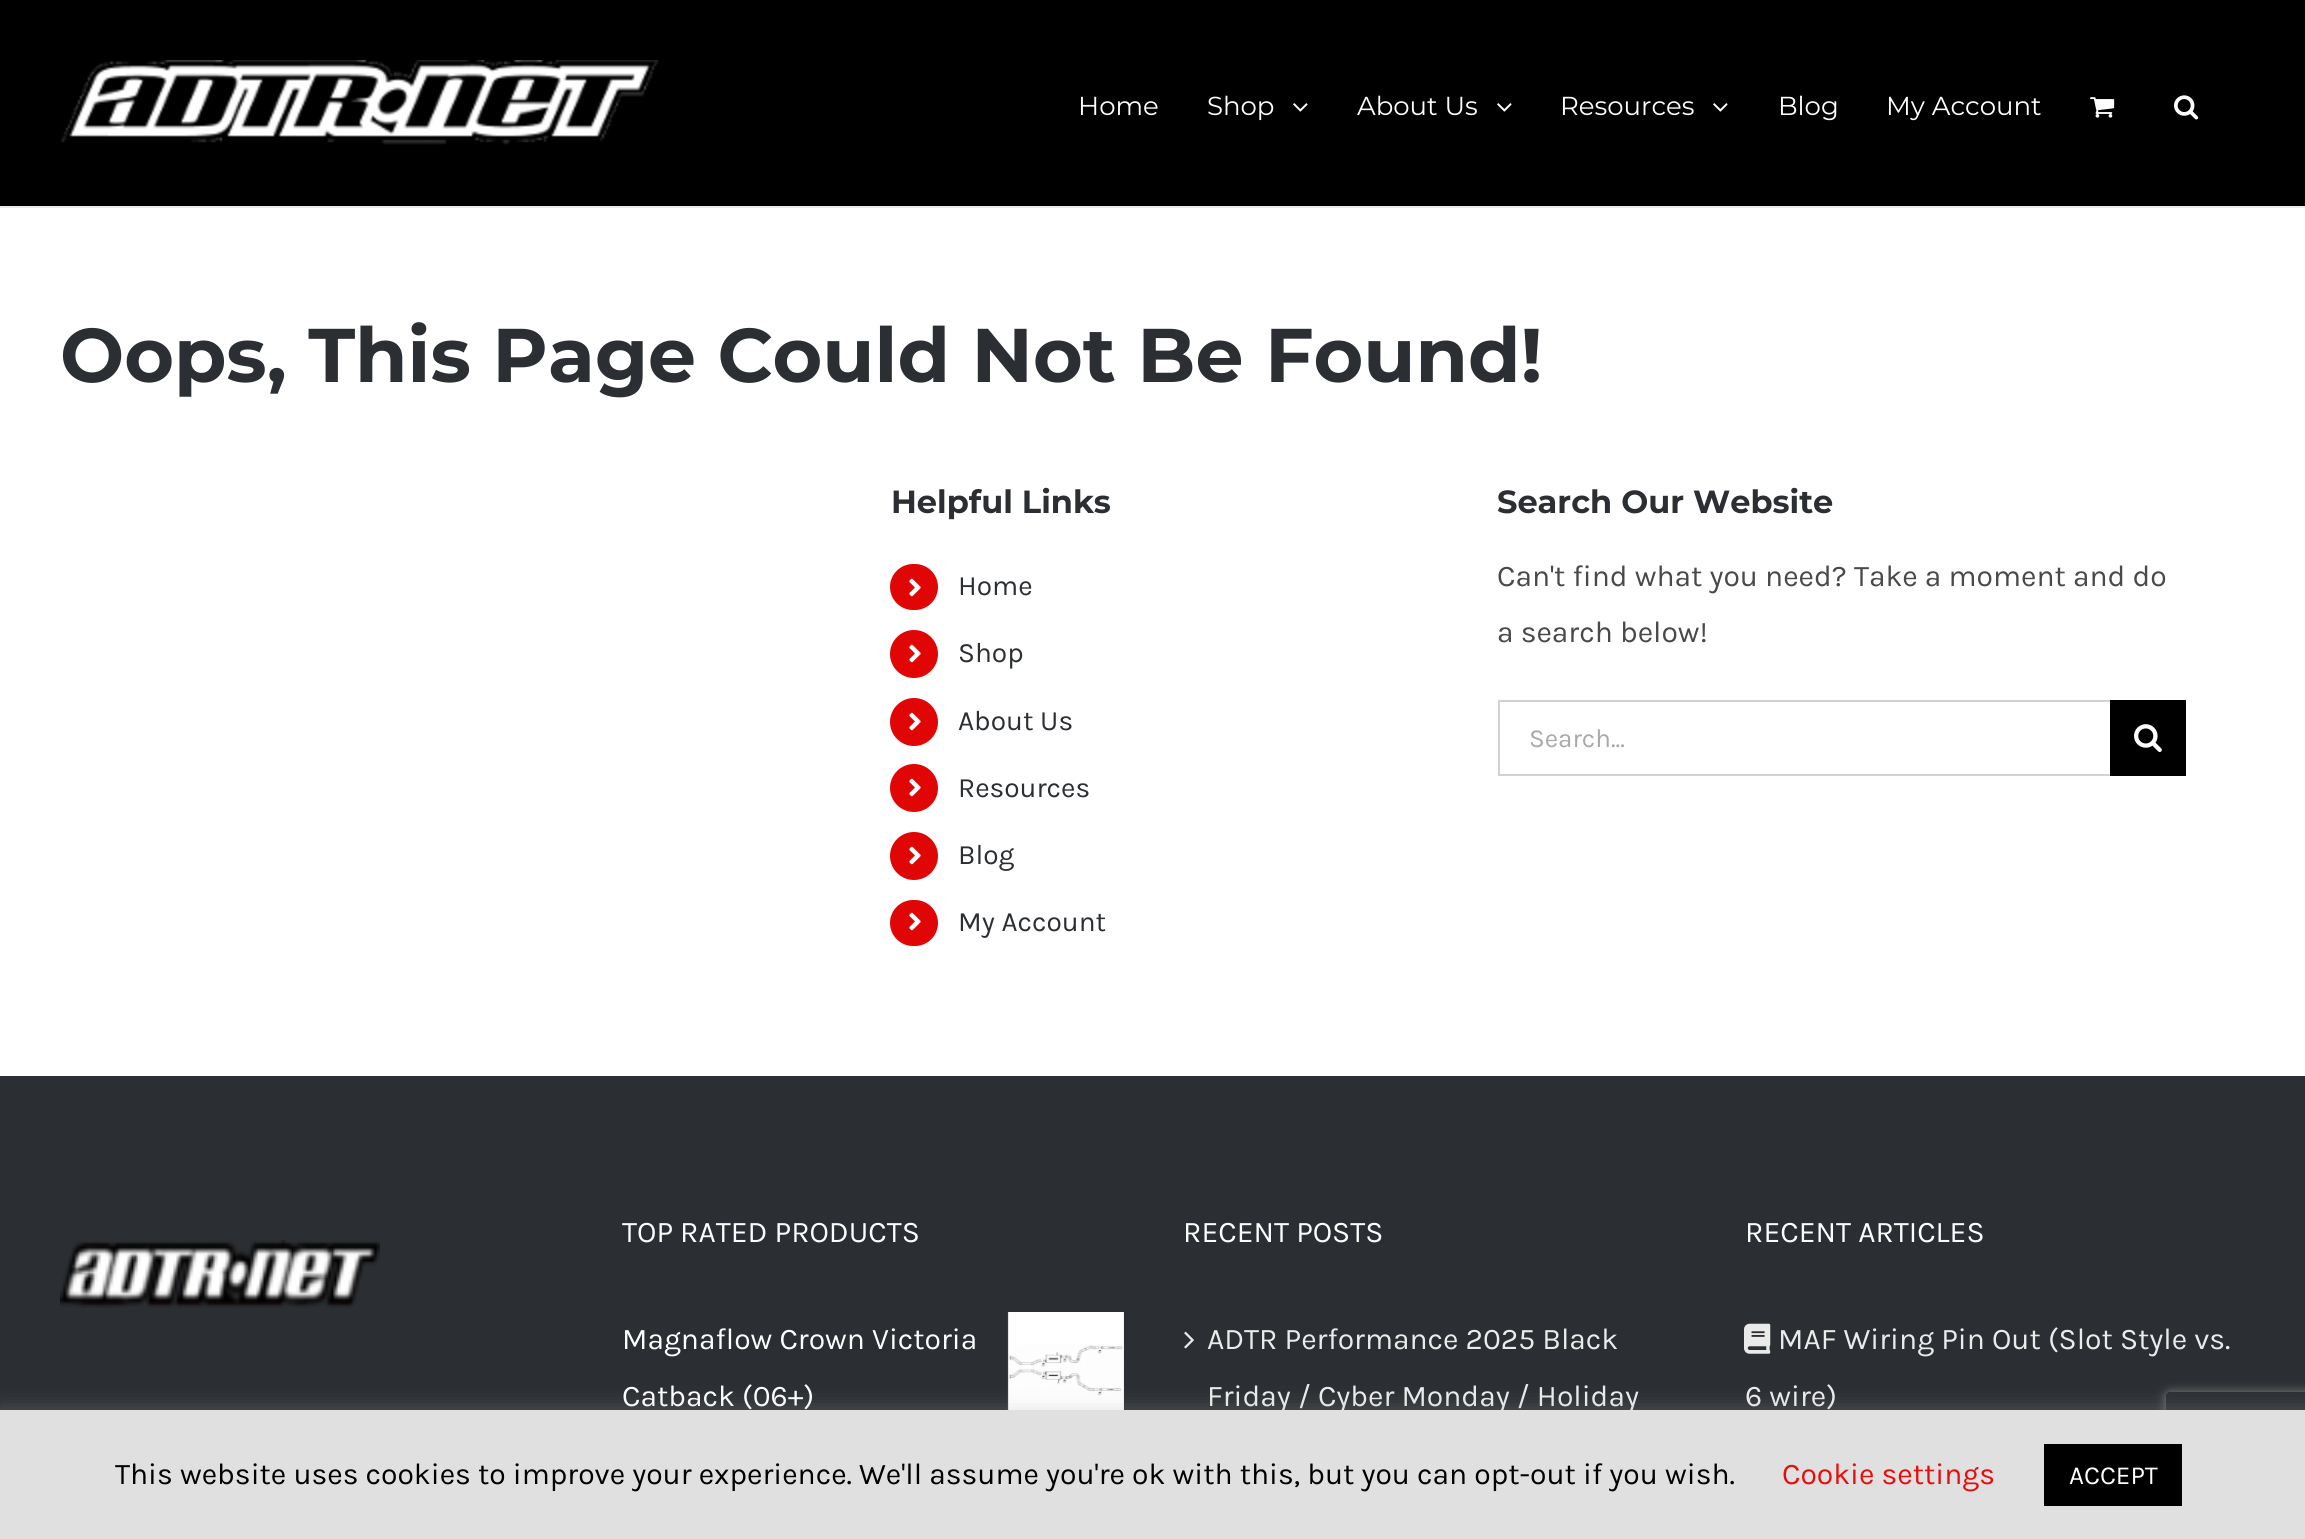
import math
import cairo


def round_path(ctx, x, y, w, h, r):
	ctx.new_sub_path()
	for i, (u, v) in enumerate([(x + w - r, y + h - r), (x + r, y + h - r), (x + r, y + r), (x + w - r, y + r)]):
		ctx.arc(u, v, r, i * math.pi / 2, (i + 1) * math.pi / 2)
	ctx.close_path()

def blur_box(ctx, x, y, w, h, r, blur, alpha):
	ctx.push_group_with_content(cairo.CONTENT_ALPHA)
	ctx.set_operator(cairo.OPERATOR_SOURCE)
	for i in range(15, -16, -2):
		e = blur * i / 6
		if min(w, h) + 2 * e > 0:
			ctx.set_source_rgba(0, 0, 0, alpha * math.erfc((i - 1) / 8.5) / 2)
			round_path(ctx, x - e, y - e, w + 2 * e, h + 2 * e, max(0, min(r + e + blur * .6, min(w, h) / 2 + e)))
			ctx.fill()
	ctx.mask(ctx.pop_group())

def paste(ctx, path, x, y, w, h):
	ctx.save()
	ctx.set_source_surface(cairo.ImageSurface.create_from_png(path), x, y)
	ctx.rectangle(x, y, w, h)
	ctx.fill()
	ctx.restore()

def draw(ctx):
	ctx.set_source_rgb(1, 1, 1)
	ctx.paint()
	ctx.set_source_rgb(0, 0, 0)
	ctx.rectangle(0, 0, 2305, 206)
	ctx.fill()
	ctx.set_source_rgb(0.918, 0.918, 0.918)
	ctx.rectangle(0, 206, 2305, 2)
	ctx.fill()
	paste(ctx, 'media/1.png', 61, 60, 598, 85)
	ctx.select_font_face('Montserrat')
	ctx.set_font_size(26)
	ctx.set_source_rgb(1, 1, 1)
	ctx.move_to(1078, 115)
	ctx.show_text('Home')
	ctx.move_to(1207, 115)
	ctx.show_text('Shop')
	paste(ctx, 'media/2.png', 1293, 103, 15, 9)
	ctx.move_to(1357, 115)
	ctx.show_text('About Us')
	paste(ctx, 'media/2.png', 1497, 103, 15, 9)
	ctx.move_to(1560, 115)
	ctx.show_text('Resources')
	paste(ctx, 'media/2.png', 1713, 103, 15, 9)
	ctx.move_to(1778, 115)
	ctx.show_text('Blog')
	ctx.move_to(1886, 115)
	ctx.show_text('My Account')
	paste(ctx, 'media/3.png', 2090, 97, 25, 21)
	paste(ctx, 'media/4.png', 2174, 95, 25, 25)
	ctx.select_font_face('Montserrat', cairo.FONT_SLANT_NORMAL, cairo.FONT_WEIGHT_BOLD)
	ctx.set_font_size(76)
	ctx.set_source_rgb(0.169, 0.18, 0.196)
	ctx.move_to(60, 382)
	ctx.show_text('Oops, This Page Could Not Be Found!')
	ctx.set_font_size(32)
	ctx.move_to(891, 513)
	ctx.show_text('Helpful Links')
	ctx.set_source_rgb(0.882, 0.027, 0.027)
	round_path(ctx, 890, 564, 48, 46, 23)
	ctx.fill()
	paste(ctx, 'media/5.png', 909, 578, 12, 19)
	ctx.select_font_face('Karla')
	ctx.set_font_size(28)
	ctx.set_source_rgb(0.169, 0.18, 0.196)
	ctx.move_to(958, 595)
	ctx.show_text('Home')
	ctx.set_source_rgb(0.882, 0.027, 0.027)
	ctx.new_path()
	ctx.arc(914, 654, 24, 0, 2 * math.pi)
	ctx.fill()
	paste(ctx, 'media/5.png', 909, 644, 12, 19)
	ctx.set_source_rgb(0.169, 0.18, 0.196)
	ctx.move_to(958, 662)
	ctx.show_text('Shop')
	ctx.set_source_rgb(0.882, 0.027, 0.027)
	ctx.new_path()
	ctx.arc(914, 722, 24, 0, 2 * math.pi)
	ctx.fill()
	paste(ctx, 'media/5.png', 909, 712, 12, 19)
	ctx.set_source_rgb(0.169, 0.18, 0.196)
	ctx.move_to(958, 730)
	ctx.show_text('About Us')
	ctx.set_source_rgb(0.882, 0.027, 0.027)
	ctx.new_path()
	ctx.arc(914, 788, 24, 0, 2 * math.pi)
	ctx.fill()
	paste(ctx, 'media/5.png', 909, 778, 12, 19)
	ctx.set_source_rgb(0.169, 0.18, 0.196)
	ctx.move_to(958, 797)
	ctx.show_text('Resources')
	ctx.set_source_rgb(0.882, 0.027, 0.027)
	ctx.new_path()
	ctx.arc(914, 856, 24, 0, 2 * math.pi)
	ctx.fill()
	paste(ctx, 'media/5.png', 909, 846, 12, 19)
	ctx.set_source_rgb(0.169, 0.18, 0.196)
	ctx.move_to(958, 864)
	ctx.show_text('Blog')
	ctx.set_source_rgb(0.882, 0.027, 0.027)
	round_path(ctx, 890, 900, 48, 46, 23)
	ctx.fill()
	paste(ctx, 'media/5.png', 909, 912, 12, 19)
	ctx.set_source_rgb(0.169, 0.18, 0.196)
	ctx.move_to(958, 931)
	ctx.show_text('My Account')
	ctx.select_font_face('Montserrat', cairo.FONT_SLANT_NORMAL, cairo.FONT_WEIGHT_BOLD)
	ctx.set_font_size(32)
	ctx.move_to(1497, 513)
	ctx.show_text('Search Our Website')
	ctx.select_font_face('Karla')
	ctx.set_font_size(30)
	ctx.set_source_rgb(0.286, 0.286, 0.286)
	ctx.move_to(1497, 586)
	ctx.show_text('Can\'t find what you need? Take a moment and do')
	ctx.move_to(1497, 642)
	ctx.show_text('a search below!')
	ctx.set_source_rgb(0.824, 0.824, 0.824)
	ctx.rectangle(1498, 700, 612, 2)
	ctx.rectangle(1498, 774, 612, 2)
	ctx.rectangle(1498, 700, 2, 76)
	ctx.fill()
	ctx.set_font_size(26)
	ctx.set_source_rgb(0.667, 0.663, 0.663)
	ctx.move_to(1529, 747)
	ctx.show_text('Search...')
	ctx.set_source_rgb(0, 0, 0)
	ctx.rectangle(2110, 700, 76, 76)
	ctx.fill()
	paste(ctx, 'media/6.png', 2134, 724, 28, 28)
	ctx.set_source_rgb(0.169, 0.18, 0.196)
	ctx.rectangle(0, 1076, 2305, 334)
	ctx.fill()
	paste(ctx, 'media/7.png', 60, 1240, 320, 68)
	ctx.set_font_size(30)
	ctx.set_source_rgb(1, 1, 1)
	ctx.move_to(622, 1242)
	ctx.show_text('TOP RATED PRODUCTS')
	ctx.move_to(622, 1349)
	ctx.show_text('Magnaflow Crown Victoria')
	paste(ctx, 'media/8.png', 1007, 1312, 117, 98)
	ctx.move_to(622, 1406)
	ctx.show_text('Catback (06+)')
	ctx.move_to(1183, 1242)
	ctx.show_text('RECENT POSTS')
	paste(ctx, 'media/9.png', 1184, 1331, 10, 18)
	ctx.set_source_rgb(0.918, 0.918, 0.918)
	ctx.move_to(1207, 1349)
	ctx.show_text('ADTR Performance 2025 Black')
	ctx.move_to(1207, 1406)
	ctx.show_text('Friday / Cyber Monday / Holiday')
	ctx.set_source_rgb(1, 1, 1)
	ctx.move_to(1745, 1242)
	ctx.show_text('RECENT ARTICLES')
	paste(ctx, 'media/10.png', 1744, 1323, 27, 31)
	ctx.set_source_rgb(0.918, 0.918, 0.918)
	ctx.move_to(1778, 1349)
	ctx.show_text('MAF Wiring Pin Out (Slot Style vs.')
	ctx.move_to(1745, 1406)
	ctx.show_text('6 wire)')
	ctx.set_source_rgb(0.675, 0.671, 0.671)
	blur_box(ctx, 0, 1408, 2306, 130, 0, 10, 0.3)
	ctx.save()
	ctx.set_fill_rule(cairo.FILL_RULE_EVEN_ODD)
	ctx.new_path()
	ctx.move_to(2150, 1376)
	ctx.line_to(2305, 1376)
	ctx.line_to(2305, 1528)
	ctx.line_to(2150, 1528)
	ctx.close_path()
	ctx.move_to(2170, 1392)
	ctx.line_to(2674, 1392)
	ctx.curve_to(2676, 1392, 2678, 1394, 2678, 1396)
	ctx.line_to(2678, 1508)
	ctx.curve_to(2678, 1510, 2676, 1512, 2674, 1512)
	ctx.line_to(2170, 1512)
	ctx.curve_to(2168, 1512, 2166, 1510, 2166, 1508)
	ctx.line_to(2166, 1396)
	ctx.curve_to(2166, 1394, 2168, 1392, 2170, 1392)
	ctx.close_path()
	ctx.clip()
	ctx.set_source_rgb(0.502, 0.502, 0.502)
	blur_box(ctx, 2166, 1392, 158, 120, 4, 5, 1)
	ctx.restore()
	ctx.set_source_rgb(0.878, 0.878, 0.878)
	ctx.rectangle(0, 1410, 2305, 129)
	ctx.fill()
	ctx.set_source_rgb(0, 0, 0)
	ctx.move_to(115, 1484)
	ctx.show_text('This website uses cookies to improve your experience. We\'ll assume you\'re ok with this, but you can opt-out if you wish.')
	ctx.set_source_rgb(0.91, 0.051, 0.051)
	ctx.move_to(1782, 1484)
	ctx.show_text('Cookie settings')
	ctx.set_source_rgb(0, 0, 0)
	ctx.rectangle(2044, 1444, 138, 62)
	ctx.fill()
	ctx.set_font_size(26)
	ctx.set_source_rgb(1, 1, 1)
	ctx.move_to(2069, 1484)
	ctx.show_text('ACCEPT')


surface = cairo.ImageSurface(cairo.FORMAT_RGB24, 2305, 1539)
ctx = cairo.Context(surface)
options = cairo.FontOptions()
options.set_hint_metrics(cairo.HINT_METRICS_OFF)
options.set_hint_style(cairo.HINT_STYLE_NONE)
ctx.set_font_options(options)
ctx.set_miter_limit(4)
draw(ctx)
surface.write_to_png('image.png')
